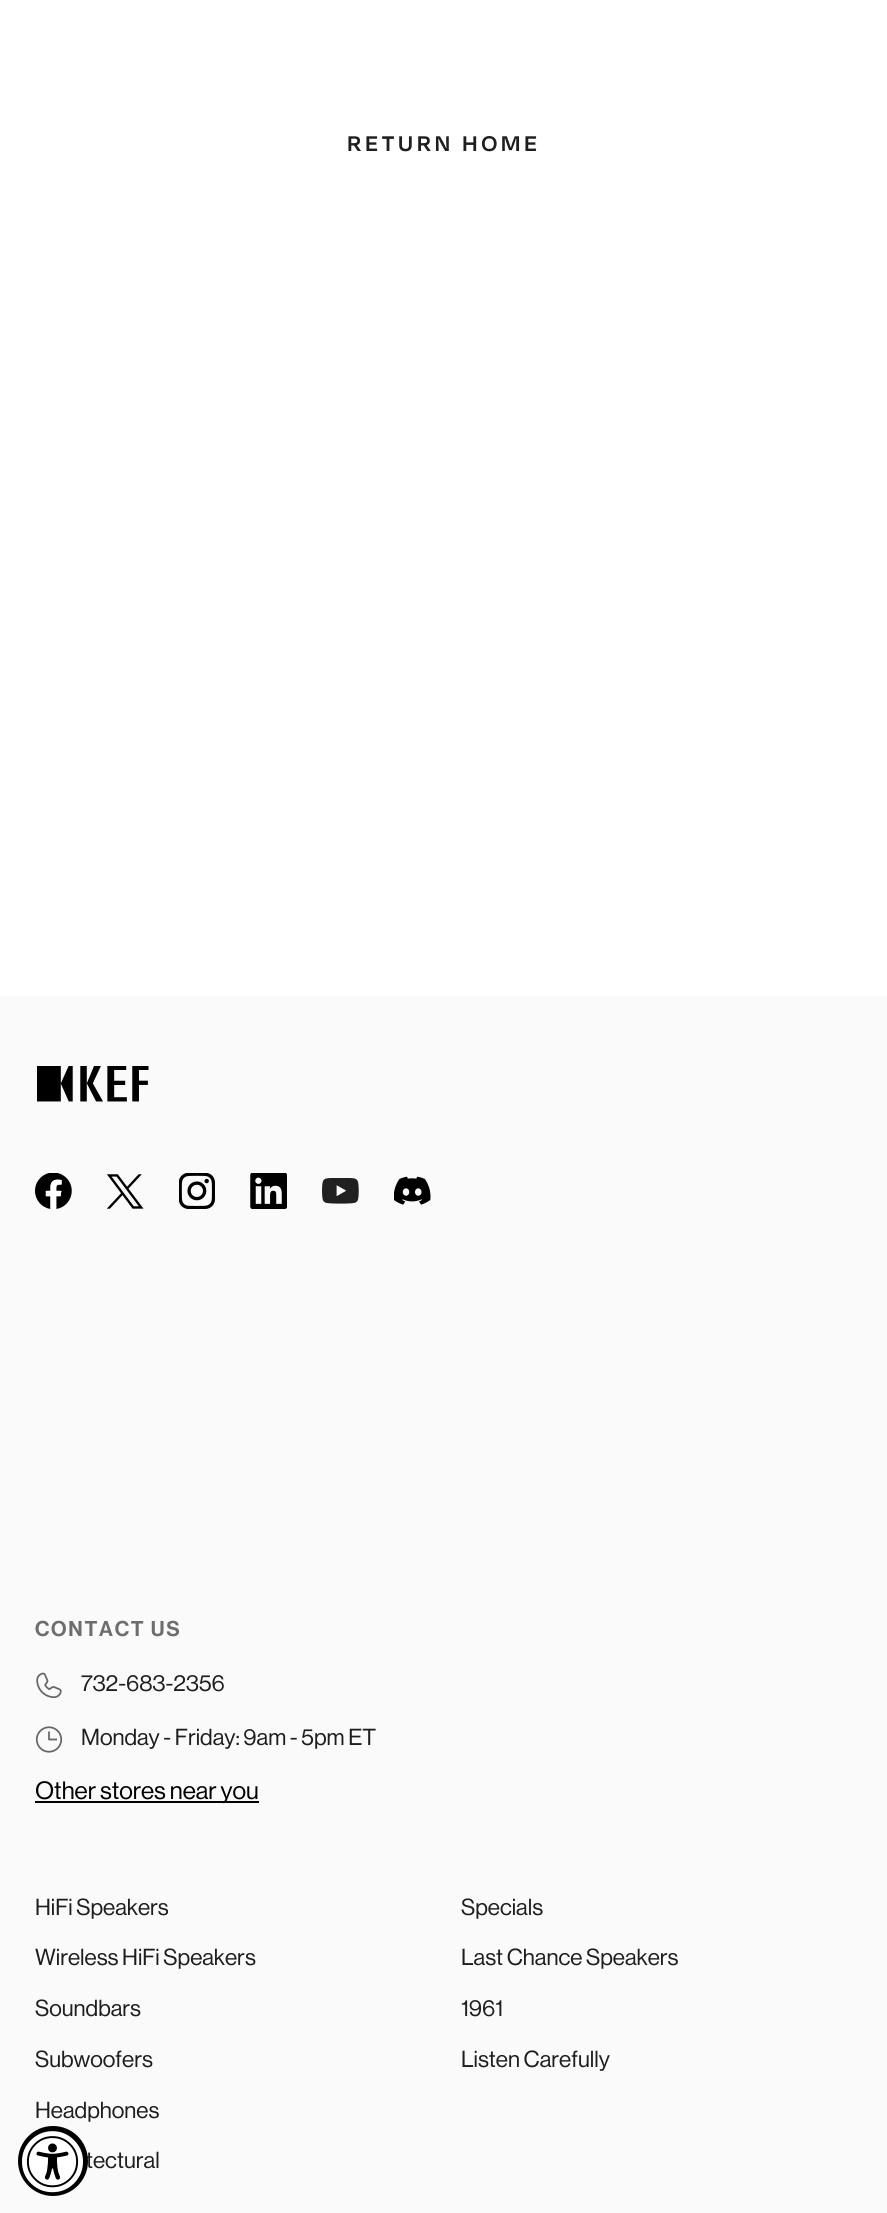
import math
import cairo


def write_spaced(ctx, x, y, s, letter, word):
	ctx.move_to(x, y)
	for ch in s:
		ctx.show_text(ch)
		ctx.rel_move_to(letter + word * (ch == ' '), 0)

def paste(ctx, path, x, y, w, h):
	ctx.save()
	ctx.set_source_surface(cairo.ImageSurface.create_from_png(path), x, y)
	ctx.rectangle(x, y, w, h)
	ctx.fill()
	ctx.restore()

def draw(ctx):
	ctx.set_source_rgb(1, 1, 1)
	ctx.paint()
	ctx.select_font_face('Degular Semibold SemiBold')
	ctx.set_font_size(24.5)
	ctx.set_source_rgb(0.122, 0.118, 0.118)
	write_spaced(ctx, 347, 151, 'RETURN HOME', 3.5, 0)
	ctx.set_source_rgb(0.98, 0.98, 0.98)
	ctx.rectangle(0, 996, 887, 1217)
	ctx.fill()
	paste(ctx, 'media/1.png', 37, 1066, 112, 36)
	paste(ctx, 'media/2.png', 35, 1173, 37, 36)
	paste(ctx, 'media/3.png', 107, 1174, 37, 35)
	paste(ctx, 'media/4.png', 179, 1173, 36, 36)
	paste(ctx, 'media/5.png', 250, 1173, 37, 36)
	paste(ctx, 'media/6.png', 322, 1178, 37, 26)
	paste(ctx, 'media/7.png', 394, 1176, 37, 29)
	ctx.select_font_face('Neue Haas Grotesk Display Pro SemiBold')
	ctx.set_font_size(21)
	ctx.set_source_rgb(0.427, 0.427, 0.427)
	write_spaced(ctx, 35, 1636, 'CONTACT US', 1.75, 0)
	paste(ctx, 'media/8.png', 36, 1672, 26, 27)
	ctx.select_font_face('Neue Haas Grotesk Display Pro')
	ctx.set_font_size(22.75)
	ctx.set_source_rgb(0.122, 0.118, 0.118)
	ctx.move_to(81, 1691)
	ctx.show_text('732-683-2356')
	paste(ctx, 'media/9.png', 35, 1726, 28, 27)
	ctx.move_to(81, 1745)
	ctx.show_text('Monday - Friday: 9am - 5pm ET')
	ctx.set_source_rgb(0, 0, 0)
	ctx.rectangle(35, 1801, 224, 2)
	ctx.fill()
	ctx.set_font_size(24.5)
	ctx.move_to(35, 1799)
	ctx.show_text('Other stores near you')
	ctx.set_font_size(22.75)
	ctx.set_source_rgb(0.122, 0.118, 0.118)
	for x, y, s in [
		(35, 1915, 'HiFi Speakers'),
		(35, 1965, 'Wireless HiFi Speakers'),
		(35, 2016, 'Soundbars'),
		(35, 2067, 'Subwoofers'),
		(35, 2118, 'Headphones'),
		(86, 2168, 'tectural'),
		(461, 1915, 'Specials'),
		(461, 1965, 'Last Chance Speakers'),
		(461, 2016, '1961'),
		(461, 2067, 'Listen Carefully'),
	]:
		ctx.move_to(x, y)
		ctx.show_text(s)
	ctx.set_source_rgb(0, 0, 0)
	ctx.new_path()
	ctx.arc(53, 2161, 35, 0, 2 * math.pi)
	ctx.fill()
	paste(ctx, 'media/10.png', 22, 2131, 61, 62)


surface = cairo.ImageSurface(cairo.FORMAT_RGB24, 887, 2213)
ctx = cairo.Context(surface)
options = cairo.FontOptions()
options.set_hint_metrics(cairo.HINT_METRICS_OFF)
options.set_hint_style(cairo.HINT_STYLE_NONE)
ctx.set_font_options(options)
ctx.set_miter_limit(4)
draw(ctx)
surface.write_to_png('image.png')
